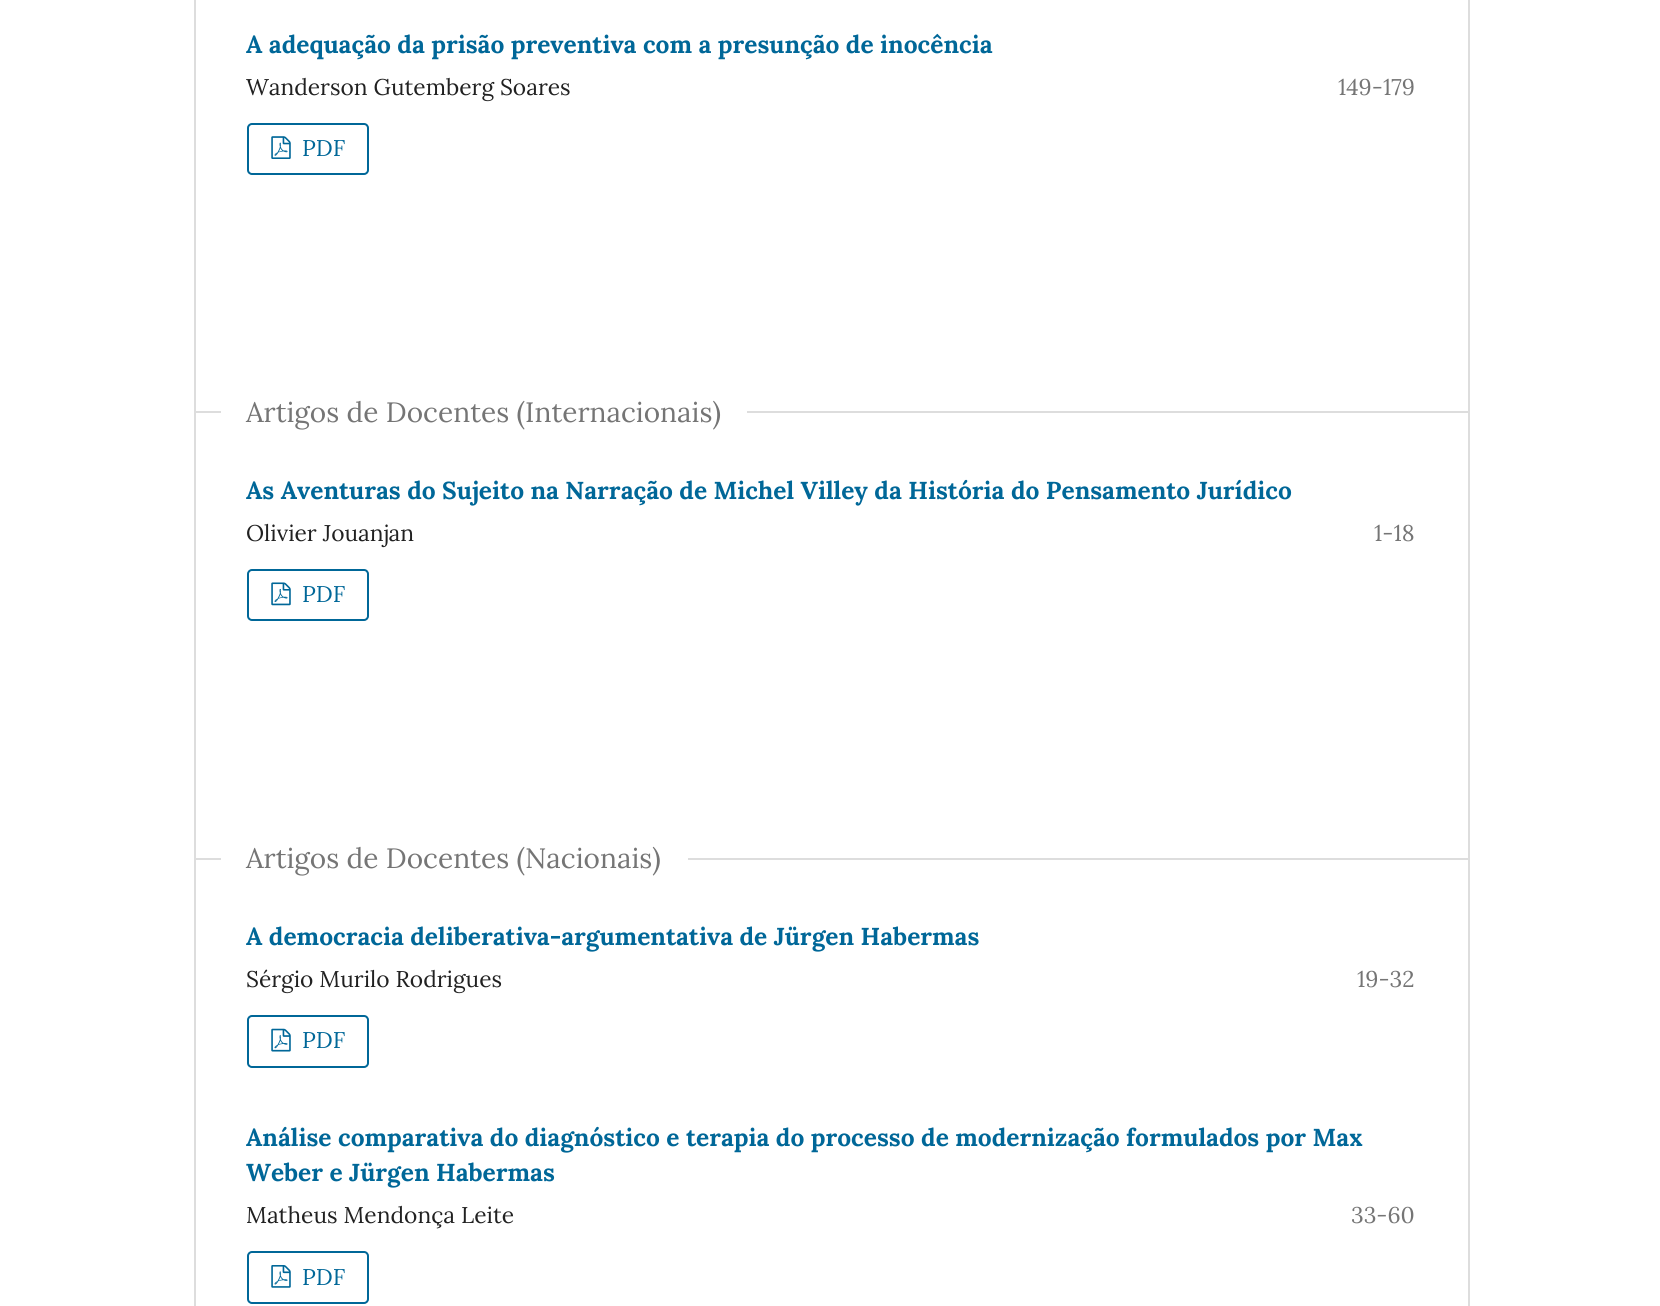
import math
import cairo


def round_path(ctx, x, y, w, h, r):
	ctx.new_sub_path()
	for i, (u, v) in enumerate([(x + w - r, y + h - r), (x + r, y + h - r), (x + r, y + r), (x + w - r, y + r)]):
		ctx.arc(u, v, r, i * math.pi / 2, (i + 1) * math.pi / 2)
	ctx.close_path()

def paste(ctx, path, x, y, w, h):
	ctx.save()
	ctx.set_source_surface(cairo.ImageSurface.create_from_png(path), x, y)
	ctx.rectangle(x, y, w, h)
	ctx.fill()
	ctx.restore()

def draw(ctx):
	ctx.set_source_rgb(1, 1, 1)
	ctx.paint()
	ctx.set_source_rgb(0.867, 0.867, 0.867)
	ctx.rectangle(194, 0, 2, 1306)
	ctx.fill()
	ctx.select_font_face('Lora', cairo.FONT_SLANT_NORMAL, cairo.FONT_WEIGHT_BOLD)
	ctx.set_font_size(24.5)
	ctx.set_source_rgb(0, 0.404, 0.596)
	ctx.move_to(246, 53)
	ctx.show_text('A adequação da prisão preventiva com a presunção de inocência')
	ctx.select_font_face('Lora')
	ctx.set_font_size(22.75)
	ctx.set_source_rgb(0.129, 0.129, 0.129)
	ctx.move_to(246, 95)
	ctx.show_text('Wanderson Gutemberg Soares')
	ctx.set_source_rgb(0.459, 0.459, 0.459)
	ctx.move_to(1338, 95)
	ctx.show_text('149-179')
	round_path(ctx, 248, 124, 120, 50, 4)
	ctx.set_source_rgb(0, 0.404, 0.596)
	ctx.stroke()
	paste(ctx, 'media/1.png', 271, 136, 20, 23)
	ctx.move_to(302, 156)
	ctx.show_text('PDF')
	ctx.set_source_rgb(0.867, 0.867, 0.867)
	ctx.rectangle(194, 411, 1274, 2)
	ctx.fill()
	ctx.set_source_rgb(1, 1, 1)
	ctx.rectangle(221, 411, 526, 2)
	ctx.fill()
	ctx.set_font_size(28)
	ctx.set_source_rgb(0.459, 0.459, 0.459)
	ctx.move_to(246, 422)
	ctx.show_text('Artigos de Docentes (Internacionais)')
	ctx.select_font_face('Lora', cairo.FONT_SLANT_NORMAL, cairo.FONT_WEIGHT_BOLD)
	ctx.set_font_size(24.5)
	ctx.set_source_rgb(0, 0.404, 0.596)
	ctx.move_to(246, 499)
	ctx.show_text('As Aventuras do Sujeito na Narração de Michel Villey da História do Pensamento Jurídico')
	ctx.select_font_face('Lora')
	ctx.set_font_size(22.75)
	ctx.set_source_rgb(0.129, 0.129, 0.129)
	ctx.move_to(246, 541)
	ctx.show_text('Olivier Jouanjan')
	ctx.set_source_rgb(0.459, 0.459, 0.459)
	ctx.move_to(1374, 541)
	ctx.show_text('1-18')
	round_path(ctx, 248, 570, 120, 50, 4)
	ctx.set_source_rgb(0, 0.404, 0.596)
	ctx.stroke()
	paste(ctx, 'media/2.png', 271, 582, 20, 24)
	ctx.move_to(302, 602)
	ctx.show_text('PDF')
	ctx.set_source_rgb(0.867, 0.867, 0.867)
	ctx.rectangle(194, 858, 1274, 2)
	ctx.fill()
	ctx.set_source_rgb(1, 1, 1)
	ctx.rectangle(221, 858, 467, 2)
	ctx.fill()
	ctx.set_font_size(28)
	ctx.set_source_rgb(0.459, 0.459, 0.459)
	ctx.move_to(246, 868)
	ctx.show_text('Artigos de Docentes (Nacionais)')
	ctx.select_font_face('Lora', cairo.FONT_SLANT_NORMAL, cairo.FONT_WEIGHT_BOLD)
	ctx.set_font_size(24.5)
	ctx.set_source_rgb(0, 0.404, 0.596)
	ctx.move_to(246, 945)
	ctx.show_text('A democracia deliberativa-argumentativa de Jürgen Habermas')
	ctx.select_font_face('Lora')
	ctx.set_font_size(22.75)
	ctx.set_source_rgb(0.129, 0.129, 0.129)
	ctx.move_to(246, 987)
	ctx.show_text('Sérgio Murilo Rodrigues')
	ctx.set_source_rgb(0.459, 0.459, 0.459)
	ctx.move_to(1357, 987)
	ctx.show_text('19-32')
	round_path(ctx, 248, 1016, 120, 51, 4)
	ctx.set_source_rgb(0, 0.404, 0.596)
	ctx.stroke()
	paste(ctx, 'media/3.png', 271, 1028, 20, 24)
	ctx.move_to(302, 1048)
	ctx.show_text('PDF')
	ctx.select_font_face('Lora', cairo.FONT_SLANT_NORMAL, cairo.FONT_WEIGHT_BOLD)
	ctx.set_font_size(24.5)
	ctx.move_to(246, 1146)
	ctx.show_text('Análise comparativa do diagnóstico e terapia do processo de modernização formulados por Max')
	ctx.move_to(246, 1181)
	ctx.show_text('Weber e Jürgen Habermas')
	ctx.select_font_face('Lora')
	ctx.set_font_size(22.75)
	ctx.set_source_rgb(0.129, 0.129, 0.129)
	ctx.move_to(246, 1223)
	ctx.show_text('Matheus Mendonça Leite')
	ctx.set_source_rgb(0.459, 0.459, 0.459)
	ctx.move_to(1351, 1223)
	ctx.show_text('33-60')
	round_path(ctx, 248, 1252, 120, 51, 4)
	ctx.set_source_rgb(0, 0.404, 0.596)
	ctx.stroke()
	paste(ctx, 'media/4.png', 271, 1265, 20, 23)
	ctx.move_to(302, 1285)
	ctx.show_text('PDF')
	ctx.set_source_rgb(0.867, 0.867, 0.867)
	ctx.rectangle(1468, 0, 2, 1306)
	ctx.fill()


surface = cairo.ImageSurface(cairo.FORMAT_RGB24, 1660, 1306)
ctx = cairo.Context(surface)
options = cairo.FontOptions()
options.set_hint_metrics(cairo.HINT_METRICS_OFF)
options.set_hint_style(cairo.HINT_STYLE_NONE)
ctx.set_font_options(options)
ctx.set_miter_limit(4)
draw(ctx)
surface.write_to_png('image.png')
